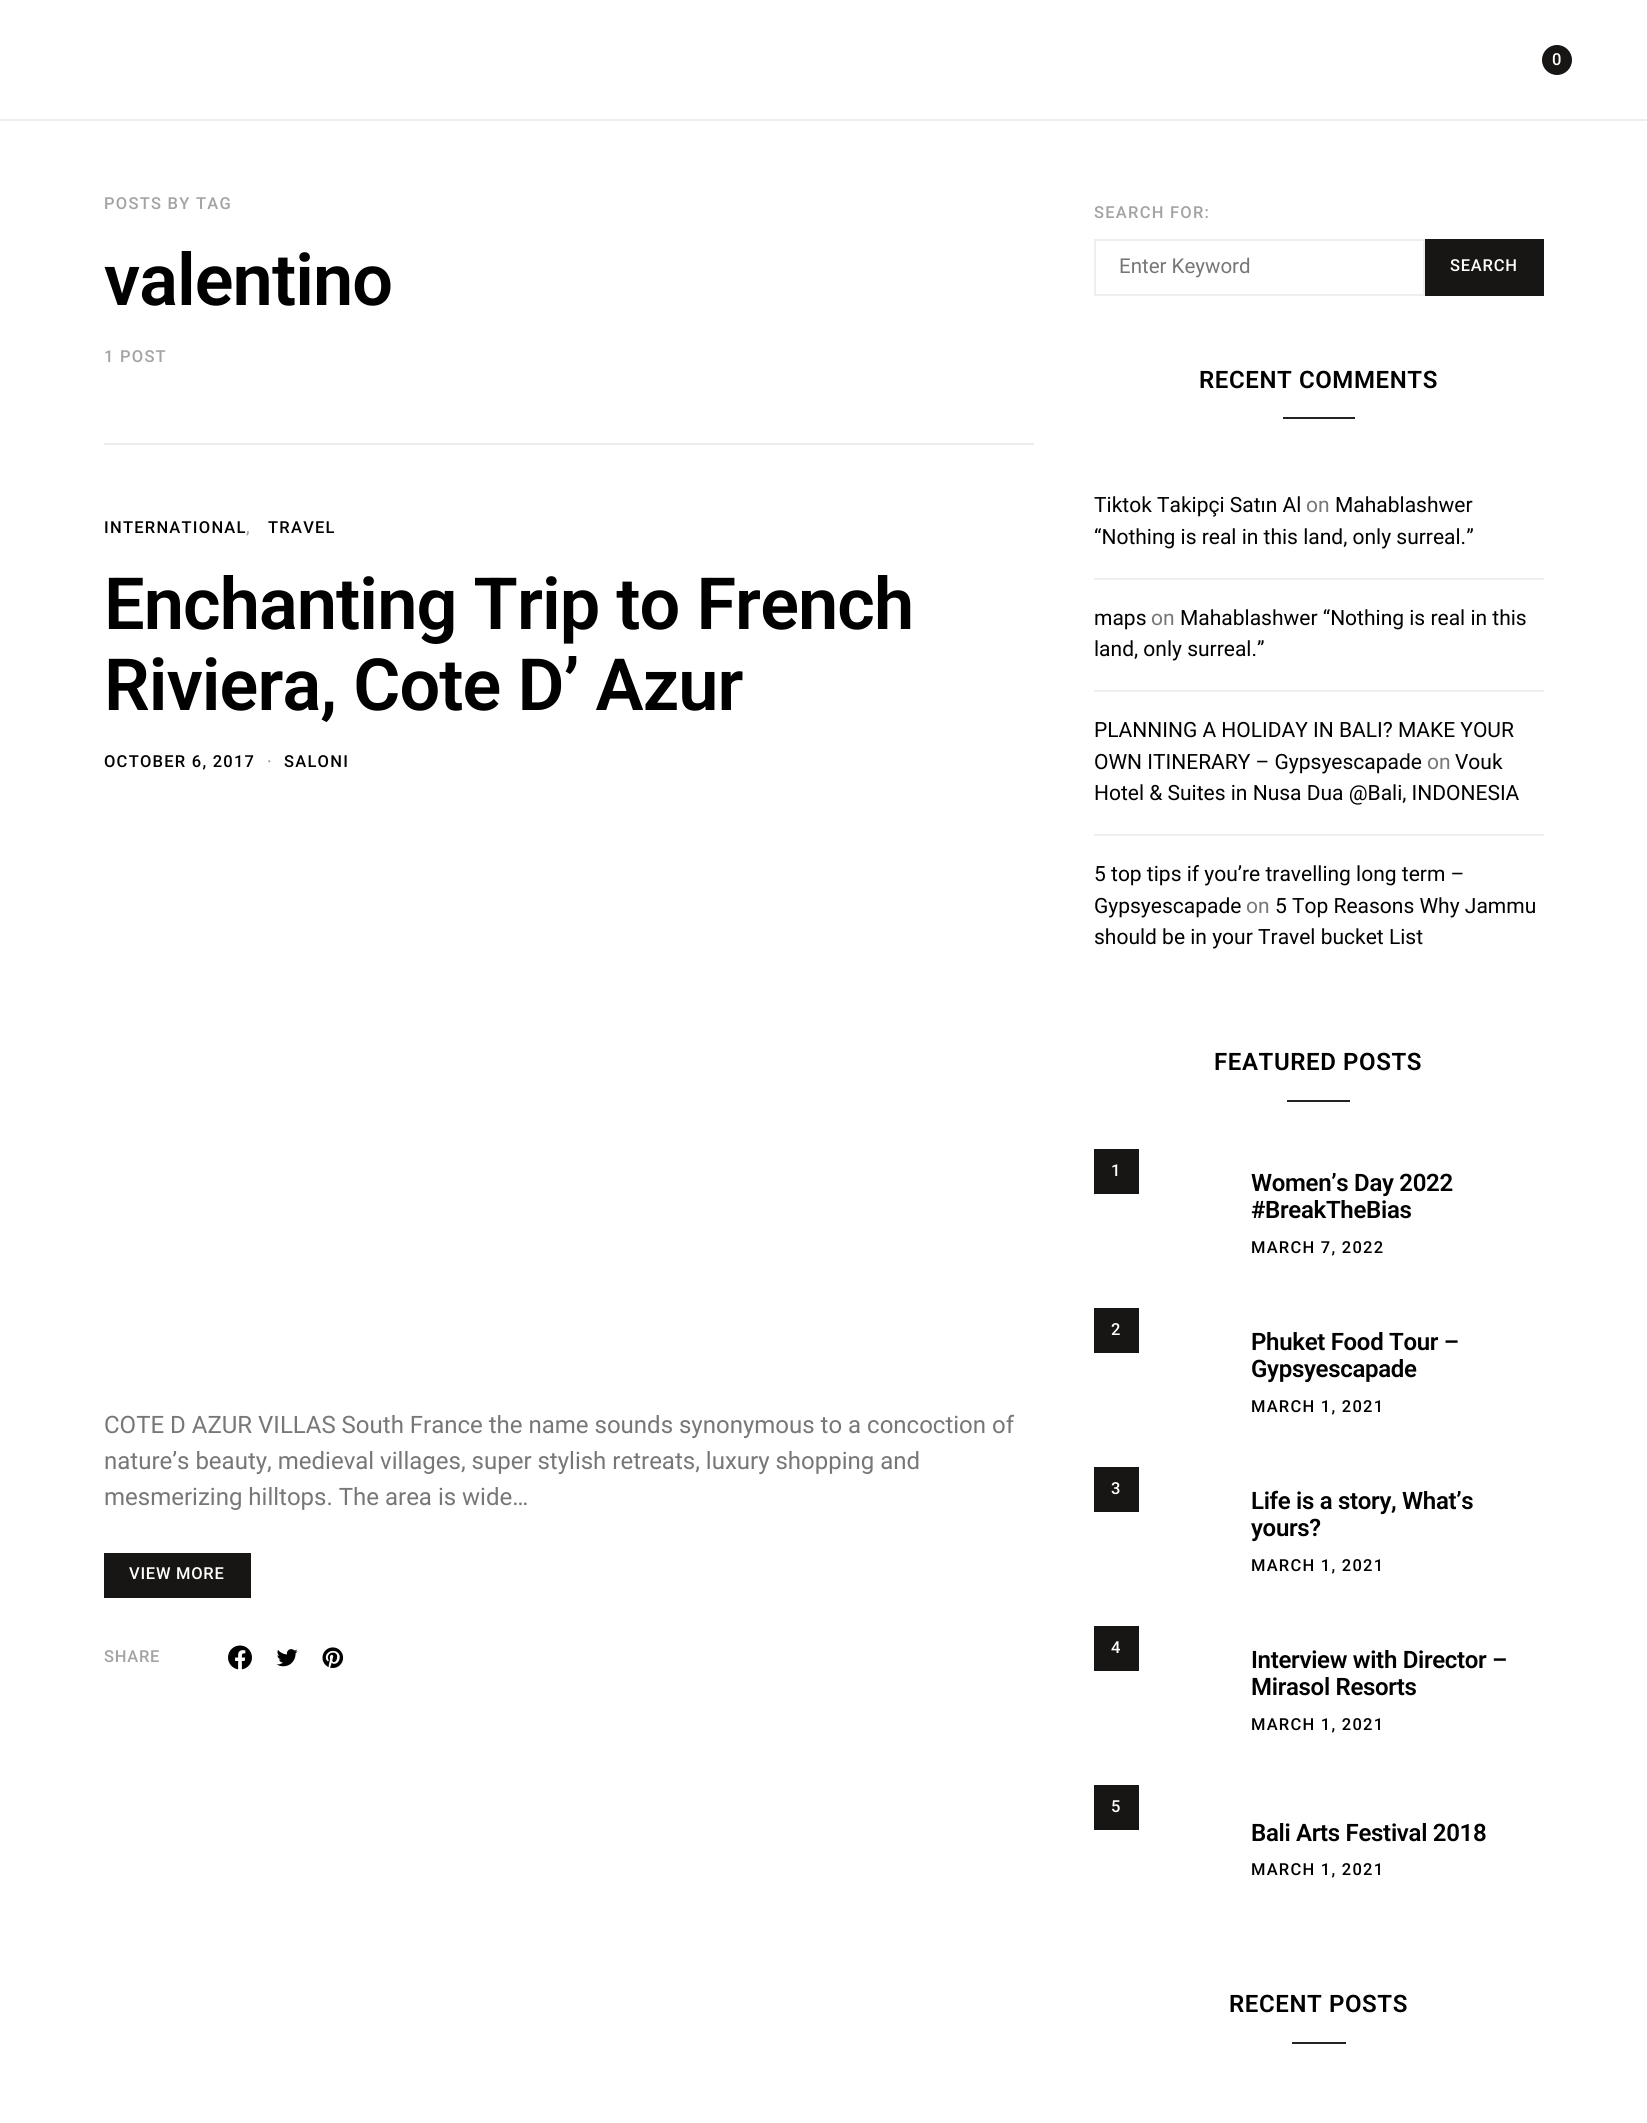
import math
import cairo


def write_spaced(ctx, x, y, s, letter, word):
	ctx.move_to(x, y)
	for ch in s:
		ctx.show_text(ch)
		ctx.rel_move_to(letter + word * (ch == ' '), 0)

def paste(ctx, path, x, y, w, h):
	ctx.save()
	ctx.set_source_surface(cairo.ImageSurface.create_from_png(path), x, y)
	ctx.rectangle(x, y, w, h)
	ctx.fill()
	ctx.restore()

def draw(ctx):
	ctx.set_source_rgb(1, 1, 1)
	ctx.paint()
	ctx.set_source_rgb(0.933, 0.933, 0.933)
	ctx.rectangle(0, 119, 1647, 2)
	ctx.fill()
	ctx.set_source_rgb(0.094, 0.086, 0.082)
	ctx.arc(1557, 60, 15, 0, 2 * math.pi)
	ctx.fill()
	ctx.select_font_face('Roboto Medium')
	ctx.set_font_size(16.5)
	ctx.set_source_rgb(1, 1, 1)
	write_spaced(ctx, 1552, 65, '0', 1.25, 0)
	ctx.set_source_rgb(0.639, 0.639, 0.639)
	write_spaced(ctx, 104, 209, 'POSTS BY TAG', 1.25, 0)
	ctx.select_font_face('Roboto SemiBold')
	ctx.set_font_size(72)
	ctx.set_source_rgb(0, 0, 0)
	write_spaced(ctx, 104, 305, 'valentino', -0.9, 0)
	ctx.select_font_face('Roboto Medium')
	ctx.set_font_size(16.5)
	ctx.set_source_rgb(0.639, 0.639, 0.639)
	write_spaced(ctx, 104, 362, '1 POST', 1.25, 0)
	ctx.set_source_rgb(0.914, 0.925, 0.937)
	ctx.rectangle(104, 443, 930, 2)
	ctx.fill()
	ctx.set_source_rgb(0, 0, 0)
	write_spaced(ctx, 104, 533, 'INTERNATIONAL', 1.25, 0)
	ctx.set_source_rgb(0.639, 0.639, 0.639)
	write_spaced(ctx, 246, 533, ',', 1.25, 0)
	ctx.set_source_rgb(0, 0, 0)
	write_spaced(ctx, 268, 533, 'TRAVEL', 1.25, 0)
	ctx.select_font_face('Roboto SemiBold')
	ctx.set_font_size(72)
	write_spaced(ctx, 104, 629, 'Enchanting Trip to French', -0.9, 0)
	write_spaced(ctx, 104, 710, 'Riviera, Cote D’ Azur', -0.9, 0)
	ctx.select_font_face('Roboto Medium')
	ctx.set_font_size(16.5)
	write_spaced(ctx, 104, 767, 'OCTOBER 6, 2017', 1.25, 0)
	ctx.set_source_rgb(0.639, 0.639, 0.639)
	write_spaced(ctx, 267, 767, '·', 1.25, 0)
	ctx.set_source_rgb(0, 0, 0)
	write_spaced(ctx, 284, 767, 'SALONI', 1.25, 0)
	ctx.select_font_face('Roboto')
	ctx.set_font_size(24)
	ctx.set_source_rgb(0.467, 0.467, 0.467)
	for x, y, s in [
		(104, 1433, 'COTE D AZUR VILLAS South France the name sounds synonymous to a concoction of'),
		(104, 1469, 'nature’s beauty, medieval villages, super stylish retreats, luxury shopping and'),
		(104, 1505, 'mesmerizing hilltops. The area is wide…'),
	]:
		ctx.move_to(x, y)
		ctx.show_text(s)
	ctx.set_source_rgb(0.094, 0.086, 0.082)
	ctx.rectangle(104, 1553, 147, 45)
	ctx.fill()
	ctx.select_font_face('Roboto Medium')
	ctx.set_font_size(16.5)
	ctx.set_source_rgb(1, 1, 1)
	write_spaced(ctx, 129, 1579, 'VIEW MORE', 0.75, 0)
	ctx.set_source_rgb(0.639, 0.639, 0.639)
	write_spaced(ctx, 104, 1662, 'SHARE', 0.75, 0)
	paste(ctx, 'media/1.png', 228, 1645, 24, 25)
	paste(ctx, 'media/2.png', 276, 1649, 22, 18)
	paste(ctx, 'media/3.png', 322, 1647, 22, 21)
	write_spaced(ctx, 1094, 218, 'SEARCH FOR:', 1.25, 0)
	ctx.rectangle(1095, 240, 329, 55)
	ctx.set_source_rgb(0.933, 0.933, 0.933)
	ctx.stroke()
	ctx.select_font_face('Roboto')
	ctx.set_font_size(20.5)
	ctx.set_source_rgb(0.467, 0.467, 0.467)
	ctx.move_to(1119, 273)
	ctx.show_text('Enter Keyword')
	ctx.set_source_rgb(0.094, 0.086, 0.082)
	ctx.rectangle(1425, 239, 119, 57)
	ctx.fill()
	ctx.select_font_face('Roboto Medium')
	ctx.set_font_size(16.5)
	ctx.set_source_rgb(1, 1, 1)
	write_spaced(ctx, 1450, 271, 'SEARCH', 0.75, 0)
	ctx.select_font_face('Roboto SemiBold')
	ctx.set_font_size(24)
	ctx.set_source_rgb(0, 0, 0)
	write_spaced(ctx, 1199, 388, 'RECENT COMMENTS', 0.6, 0)
	ctx.set_source_rgb(0.137, 0.137, 0.137)
	ctx.rectangle(1283, 417, 72, 2)
	ctx.fill()
	ctx.select_font_face('Roboto')
	ctx.set_font_size(21)
	ctx.set_source_rgb(0, 0, 0)
	ctx.move_to(1094, 512)
	ctx.show_text('Tiktok Takipçi Satın Al')
	ctx.set_source_rgb(0.467, 0.467, 0.467)
	ctx.move_to(1306, 512)
	ctx.show_text('on')
	ctx.set_source_rgb(0, 0, 0)
	ctx.move_to(1335, 512)
	ctx.show_text('Mahablashwer')
	ctx.move_to(1094, 544)
	ctx.show_text('“Nothing is real in this land, only surreal.”')
	ctx.set_source_rgb(0.933, 0.933, 0.933)
	ctx.rectangle(1094, 578, 450, 2)
	ctx.fill()
	ctx.set_source_rgb(0, 0, 0)
	ctx.move_to(1094, 625)
	ctx.show_text('maps')
	ctx.set_source_rgb(0.467, 0.467, 0.467)
	ctx.move_to(1151, 625)
	ctx.show_text('on')
	ctx.set_source_rgb(0, 0, 0)
	ctx.move_to(1180, 625)
	ctx.show_text('Mahablashwer “Nothing is real in this')
	ctx.move_to(1094, 656)
	ctx.show_text('land, only surreal.”')
	ctx.set_source_rgb(0.933, 0.933, 0.933)
	ctx.rectangle(1094, 690, 450, 2)
	ctx.fill()
	ctx.set_source_rgb(0, 0, 0)
	ctx.move_to(1094, 737)
	ctx.show_text('PLANNING A HOLIDAY IN BALI? MAKE YOUR')
	ctx.move_to(1094, 769)
	ctx.show_text('OWN ITINERARY – Gypsyescapade')
	ctx.set_source_rgb(0.467, 0.467, 0.467)
	ctx.move_to(1427, 769)
	ctx.show_text('on')
	ctx.set_source_rgb(0, 0, 0)
	ctx.move_to(1455, 769)
	ctx.show_text('Vouk')
	ctx.move_to(1094, 800)
	ctx.show_text('Hotel & Suites in Nusa Dua @Bali, INDONESIA')
	ctx.set_source_rgb(0.933, 0.933, 0.933)
	ctx.rectangle(1094, 834, 450, 2)
	ctx.fill()
	ctx.set_source_rgb(0, 0, 0)
	ctx.move_to(1094, 881)
	ctx.show_text('5 top tips if you’re travelling long term –')
	ctx.move_to(1094, 913)
	ctx.show_text('Gypsyescapade')
	ctx.set_source_rgb(0.467, 0.467, 0.467)
	ctx.move_to(1246, 913)
	ctx.show_text('on')
	ctx.set_source_rgb(0, 0, 0)
	ctx.move_to(1275, 913)
	ctx.show_text('5 Top Reasons Why Jammu')
	ctx.move_to(1094, 944)
	ctx.show_text('should be in your Travel bucket List')
	ctx.select_font_face('Roboto SemiBold')
	ctx.set_font_size(24)
	write_spaced(ctx, 1214, 1070, 'FEATURED POSTS', 0.6, 0)
	ctx.set_source_rgb(0.137, 0.137, 0.137)
	ctx.rectangle(1287, 1100, 63, 2)
	ctx.fill()
	ctx.set_source_rgb(0.094, 0.086, 0.082)
	ctx.rectangle(1094, 1149, 45, 45)
	ctx.fill()
	ctx.select_font_face('Roboto Medium')
	ctx.set_font_size(16.5)
	ctx.set_source_rgb(1, 1, 1)
	write_spaced(ctx, 1111, 1176, '1', 0.75, 0)
	ctx.select_font_face('Roboto SemiBold')
	ctx.set_font_size(24)
	ctx.set_source_rgb(0, 0, 0)
	write_spaced(ctx, 1251, 1191, 'Women’s Day 2022', -0.3, 0)
	write_spaced(ctx, 1251, 1218, '#BreakTheBias', -0.3, 0)
	ctx.select_font_face('Roboto Medium')
	ctx.set_font_size(16.5)
	write_spaced(ctx, 1251, 1253, 'MARCH 7, 2022', 1.25, 0)
	ctx.set_source_rgb(0.094, 0.086, 0.082)
	ctx.rectangle(1094, 1308, 45, 45)
	ctx.fill()
	ctx.set_source_rgb(1, 1, 1)
	write_spaced(ctx, 1111, 1335, '2', 0.75, 0)
	ctx.select_font_face('Roboto SemiBold')
	ctx.set_font_size(24)
	ctx.set_source_rgb(0, 0, 0)
	write_spaced(ctx, 1251, 1350, 'Phuket Food Tour –', -0.3, 0)
	write_spaced(ctx, 1251, 1377, 'Gypsyescapade', -0.3, 0)
	ctx.select_font_face('Roboto Medium')
	ctx.set_font_size(16.5)
	write_spaced(ctx, 1251, 1412, 'MARCH 1, 2021', 1.25, 0)
	ctx.set_source_rgb(0.094, 0.086, 0.082)
	ctx.rectangle(1094, 1467, 45, 45)
	ctx.fill()
	ctx.set_source_rgb(1, 1, 1)
	write_spaced(ctx, 1111, 1494, '3', 0.75, 0)
	ctx.select_font_face('Roboto SemiBold')
	ctx.set_font_size(24)
	ctx.set_source_rgb(0, 0, 0)
	write_spaced(ctx, 1251, 1509, 'Life is a story, What’s', -0.3, 0)
	write_spaced(ctx, 1251, 1536, 'yours?', -0.3, 0)
	ctx.select_font_face('Roboto Medium')
	ctx.set_font_size(16.5)
	write_spaced(ctx, 1251, 1571, 'MARCH 1, 2021', 1.25, 0)
	ctx.set_source_rgb(0.094, 0.086, 0.082)
	ctx.rectangle(1094, 1626, 45, 45)
	ctx.fill()
	ctx.set_source_rgb(1, 1, 1)
	write_spaced(ctx, 1111, 1653, '4', 0.75, 0)
	ctx.select_font_face('Roboto SemiBold')
	ctx.set_font_size(24)
	ctx.set_source_rgb(0, 0, 0)
	write_spaced(ctx, 1251, 1668, 'Interview with Director –', -0.3, 0)
	write_spaced(ctx, 1251, 1695, 'Mirasol Resorts', -0.3, 0)
	ctx.select_font_face('Roboto Medium')
	ctx.set_font_size(16.5)
	write_spaced(ctx, 1251, 1730, 'MARCH 1, 2021', 1.25, 0)
	ctx.set_source_rgb(0.094, 0.086, 0.082)
	ctx.rectangle(1094, 1785, 45, 45)
	ctx.fill()
	ctx.set_source_rgb(1, 1, 1)
	write_spaced(ctx, 1111, 1812, '5', 0.75, 0)
	ctx.select_font_face('Roboto SemiBold')
	ctx.set_font_size(24)
	ctx.set_source_rgb(0, 0, 0)
	write_spaced(ctx, 1251, 1841, 'Bali Arts Festival 2018', -0.3, 0)
	ctx.select_font_face('Roboto Medium')
	ctx.set_font_size(16.5)
	write_spaced(ctx, 1251, 1875, 'MARCH 1, 2021', 1.25, 0)
	ctx.select_font_face('Roboto SemiBold')
	ctx.set_font_size(24)
	write_spaced(ctx, 1229, 2012, 'RECENT POSTS', 0.6, 0)
	ctx.set_source_rgb(0.137, 0.137, 0.137)
	ctx.rectangle(1292, 2042, 54, 2)
	ctx.fill()


surface = cairo.ImageSurface(cairo.FORMAT_RGB24, 1647, 2123)
ctx = cairo.Context(surface)
options = cairo.FontOptions()
options.set_hint_metrics(cairo.HINT_METRICS_OFF)
options.set_hint_style(cairo.HINT_STYLE_NONE)
ctx.set_font_options(options)
ctx.set_miter_limit(4)
draw(ctx)
surface.write_to_png('image.png')
